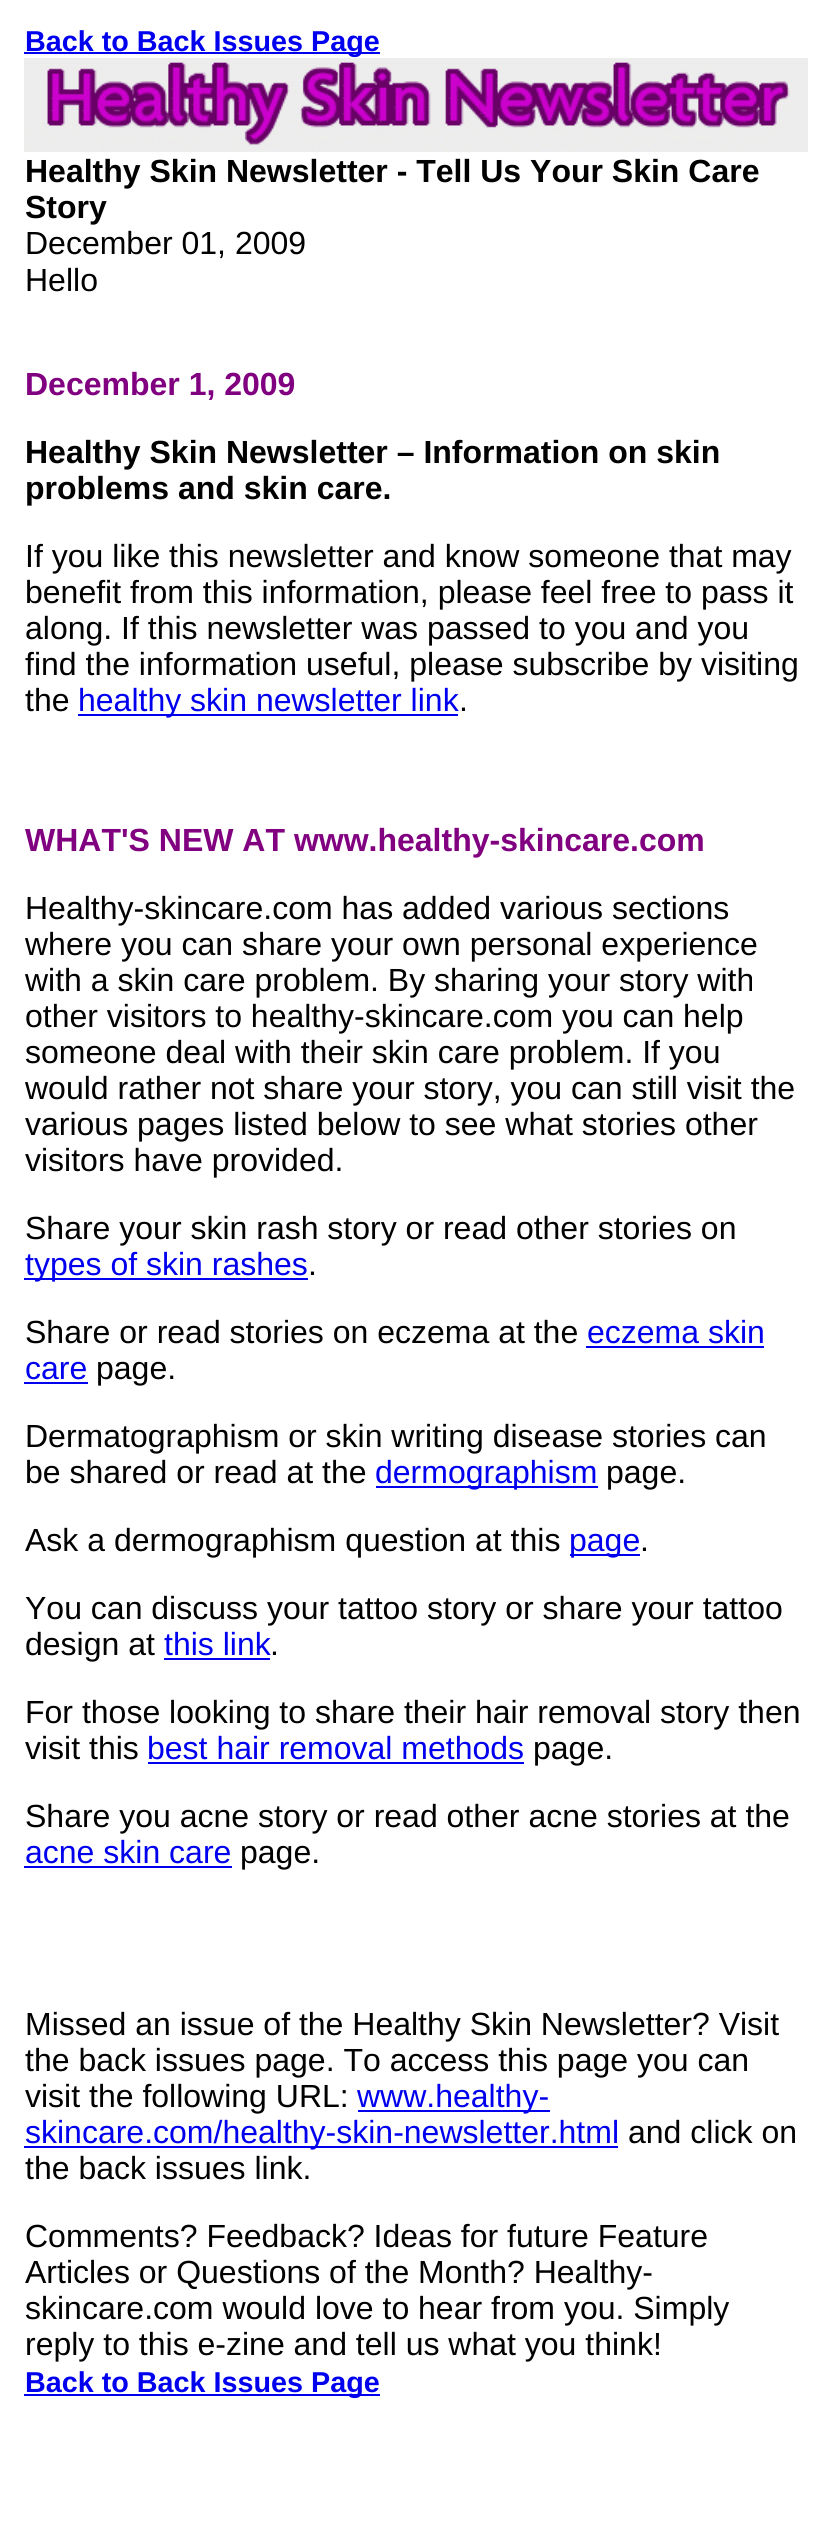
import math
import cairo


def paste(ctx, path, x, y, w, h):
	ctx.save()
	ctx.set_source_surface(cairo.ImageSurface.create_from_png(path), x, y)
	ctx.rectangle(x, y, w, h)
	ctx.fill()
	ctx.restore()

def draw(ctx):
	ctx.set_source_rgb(1, 1, 1)
	ctx.paint()
	ctx.set_source_rgb(0, 0, 0.933)
	ctx.rectangle(24, 52, 356, 2)
	ctx.fill()
	ctx.select_font_face('Liberation Sans', cairo.FONT_SLANT_NORMAL, cairo.FONT_WEIGHT_BOLD)
	ctx.set_font_size(28.75)
	ctx.move_to(25, 51)
	ctx.show_text('Back to Back Issues Page')
	paste(ctx, 'media/1.png', 24, 58, 784, 94)
	ctx.set_font_size(32)
	ctx.set_source_rgb(0, 0, 0)
	ctx.move_to(25, 182)
	ctx.show_text('Healthy Skin Newsletter - Tell Us Your Skin Care')
	ctx.move_to(25, 218)
	ctx.show_text('Story')
	ctx.select_font_face('Liberation Sans')
	ctx.move_to(25, 254)
	ctx.show_text('December 01, 2009')
	ctx.move_to(25, 291)
	ctx.show_text('Hello')
	ctx.select_font_face('Liberation Sans', cairo.FONT_SLANT_NORMAL, cairo.FONT_WEIGHT_BOLD)
	ctx.set_source_rgb(0.502, 0, 0.502)
	ctx.move_to(25, 395)
	ctx.show_text('December 1, 2009')
	ctx.set_source_rgb(0, 0, 0)
	ctx.move_to(25, 463)
	ctx.show_text('Healthy Skin Newsletter – Information on skin')
	ctx.move_to(25, 499)
	ctx.show_text('problems and skin care.')
	ctx.select_font_face('Liberation Sans')
	for x, y, s in [
		(25, 567, 'If you like this newsletter and know someone that may'),
		(25, 603, 'benefit from this information, please feel free to pass it'),
		(25, 639, 'along. If this newsletter was passed to you and you'),
		(25, 675, 'find the information useful, please subscribe by visiting'),
		(25, 711, 'the'),
	]:
		ctx.move_to(x, y)
		ctx.show_text(s)
	ctx.set_source_rgb(0, 0, 0.933)
	ctx.rectangle(78, 714, 380, 2)
	ctx.fill()
	ctx.move_to(78, 711)
	ctx.show_text('healthy skin newsletter link')
	ctx.set_source_rgb(0, 0, 0)
	ctx.move_to(459, 711)
	ctx.show_text('.')
	ctx.select_font_face('Liberation Sans', cairo.FONT_SLANT_NORMAL, cairo.FONT_WEIGHT_BOLD)
	ctx.set_source_rgb(0.502, 0, 0.502)
	ctx.move_to(25, 851)
	ctx.show_text('WHAT\'S NEW AT www.healthy-skincare.com')
	ctx.select_font_face('Liberation Sans')
	ctx.set_source_rgb(0, 0, 0)
	for x, y, s in [
		(25, 919, 'Healthy-skincare.com has added various sections'),
		(25, 955, 'where you can share your own personal experience'),
		(25, 991, 'with a skin care problem. By sharing your story with'),
		(25, 1027, 'other visitors to healthy-skincare.com you can help'),
		(25, 1063, 'someone deal with their skin care problem. If you'),
		(25, 1099, 'would rather not share your story, you can still visit the'),
		(25, 1135, 'various pages listed below to see what stories other'),
		(25, 1171, 'visitors have provided.'),
		(25, 1239, 'Share your skin rash story or read other stories on'),
	]:
		ctx.move_to(x, y)
		ctx.show_text(s)
	ctx.set_source_rgb(0, 0, 0.933)
	ctx.rectangle(24, 1278, 284, 2)
	ctx.fill()
	ctx.move_to(25, 1275)
	ctx.show_text('types of skin rashes')
	ctx.set_source_rgb(0, 0, 0)
	ctx.move_to(308, 1275)
	ctx.show_text('.')
	ctx.move_to(25, 1343)
	ctx.show_text('Share or read stories on eczema at the')
	ctx.set_source_rgb(0, 0, 0.933)
	ctx.move_to(587, 1343)
	ctx.show_text('eczema skin')
	ctx.rectangle(586, 1346, 178, 2)
	ctx.fill()
	ctx.move_to(25, 1379)
	ctx.show_text('care')
	ctx.rectangle(24, 1382, 64, 2)
	ctx.fill()
	ctx.set_source_rgb(0, 0, 0)
	for x, y, s in [
		(96, 1379, 'page.'),
		(25, 1447, 'Dermatographism or skin writing disease stories can'),
		(25, 1483, 'be shared or read at the'),
	]:
		ctx.move_to(x, y)
		ctx.show_text(s)
	ctx.set_source_rgb(0, 0, 0.933)
	ctx.rectangle(376, 1486, 222, 2)
	ctx.fill()
	ctx.move_to(375, 1483)
	ctx.show_text('dermographism')
	ctx.set_source_rgb(0, 0, 0)
	ctx.move_to(606, 1483)
	ctx.show_text('page.')
	ctx.move_to(25, 1551)
	ctx.show_text('Ask a dermographism question at this')
	ctx.set_source_rgb(0, 0, 0.933)
	ctx.rectangle(570, 1554, 70, 2)
	ctx.fill()
	ctx.move_to(569, 1551)
	ctx.show_text('page')
	ctx.set_source_rgb(0, 0, 0)
	for x, y, s in [
		(640, 1551, '.'),
		(25, 1619, 'You can discuss your tattoo story or share your tattoo'),
		(25, 1655, 'design at'),
	]:
		ctx.move_to(x, y)
		ctx.show_text(s)
	ctx.set_source_rgb(0, 0, 0.933)
	ctx.move_to(164, 1655)
	ctx.show_text('this link')
	ctx.rectangle(164, 1658, 106, 2)
	ctx.fill()
	ctx.set_source_rgb(0, 0, 0)
	for x, y, s in [
		(270, 1655, '.'),
		(25, 1723, 'For those looking to share their hair removal story then'),
		(25, 1759, 'visit this'),
	]:
		ctx.move_to(x, y)
		ctx.show_text(s)
	ctx.set_source_rgb(0, 0, 0.933)
	ctx.move_to(147, 1759)
	ctx.show_text('best hair removal methods')
	ctx.rectangle(148, 1762, 376, 2)
	ctx.fill()
	ctx.set_source_rgb(0, 0, 0)
	ctx.move_to(533, 1759)
	ctx.show_text('page.')
	ctx.move_to(25, 1827)
	ctx.show_text('Share you acne story or read other acne stories at the')
	ctx.set_source_rgb(0, 0, 0.933)
	ctx.move_to(25, 1863)
	ctx.show_text('acne skin care')
	ctx.rectangle(24, 1866, 208, 2)
	ctx.fill()
	ctx.set_source_rgb(0, 0, 0)
	for x, y, s in [
		(240, 1863, 'page.'),
		(25, 2035, 'Missed an issue of the Healthy Skin Newsletter? Visit'),
		(25, 2071, 'the back issues page. To access this page you can'),
		(25, 2107, 'visit the following URL:'),
	]:
		ctx.move_to(x, y)
		ctx.show_text(s)
	ctx.set_source_rgb(0, 0, 0.933)
	ctx.rectangle(358, 2110, 192, 2)
	ctx.fill()
	ctx.move_to(357, 2107)
	ctx.show_text('www.healthy-')
	ctx.rectangle(24, 2146, 594, 2)
	ctx.fill()
	ctx.move_to(25, 2143)
	ctx.show_text('skincare.com/healthy-skin-newsletter.html')
	ctx.set_source_rgb(0, 0, 0)
	for x, y, s in [
		(628, 2143, 'and click on'),
		(25, 2179, 'the back issues link.'),
		(25, 2247, 'Comments? Feedback? Ideas for future Feature'),
		(25, 2283, 'Articles or Questions of the Month? Healthy-'),
		(25, 2319, 'skincare.com would love to hear from you. Simply'),
		(25, 2355, 'reply to this e-zine and tell us what you think!'),
	]:
		ctx.move_to(x, y)
		ctx.show_text(s)
	ctx.set_source_rgb(0, 0, 0.933)
	ctx.rectangle(24, 2394, 356, 2)
	ctx.fill()
	ctx.select_font_face('Liberation Sans', cairo.FONT_SLANT_NORMAL, cairo.FONT_WEIGHT_BOLD)
	ctx.set_font_size(28.75)
	ctx.move_to(25, 2392)
	ctx.show_text('Back to Back Issues Page')


surface = cairo.ImageSurface(cairo.FORMAT_RGB24, 832, 2546)
ctx = cairo.Context(surface)
options = cairo.FontOptions()
options.set_hint_metrics(cairo.HINT_METRICS_OFF)
options.set_hint_style(cairo.HINT_STYLE_NONE)
ctx.set_font_options(options)
ctx.set_miter_limit(4)
draw(ctx)
surface.write_to_png('image.png')
